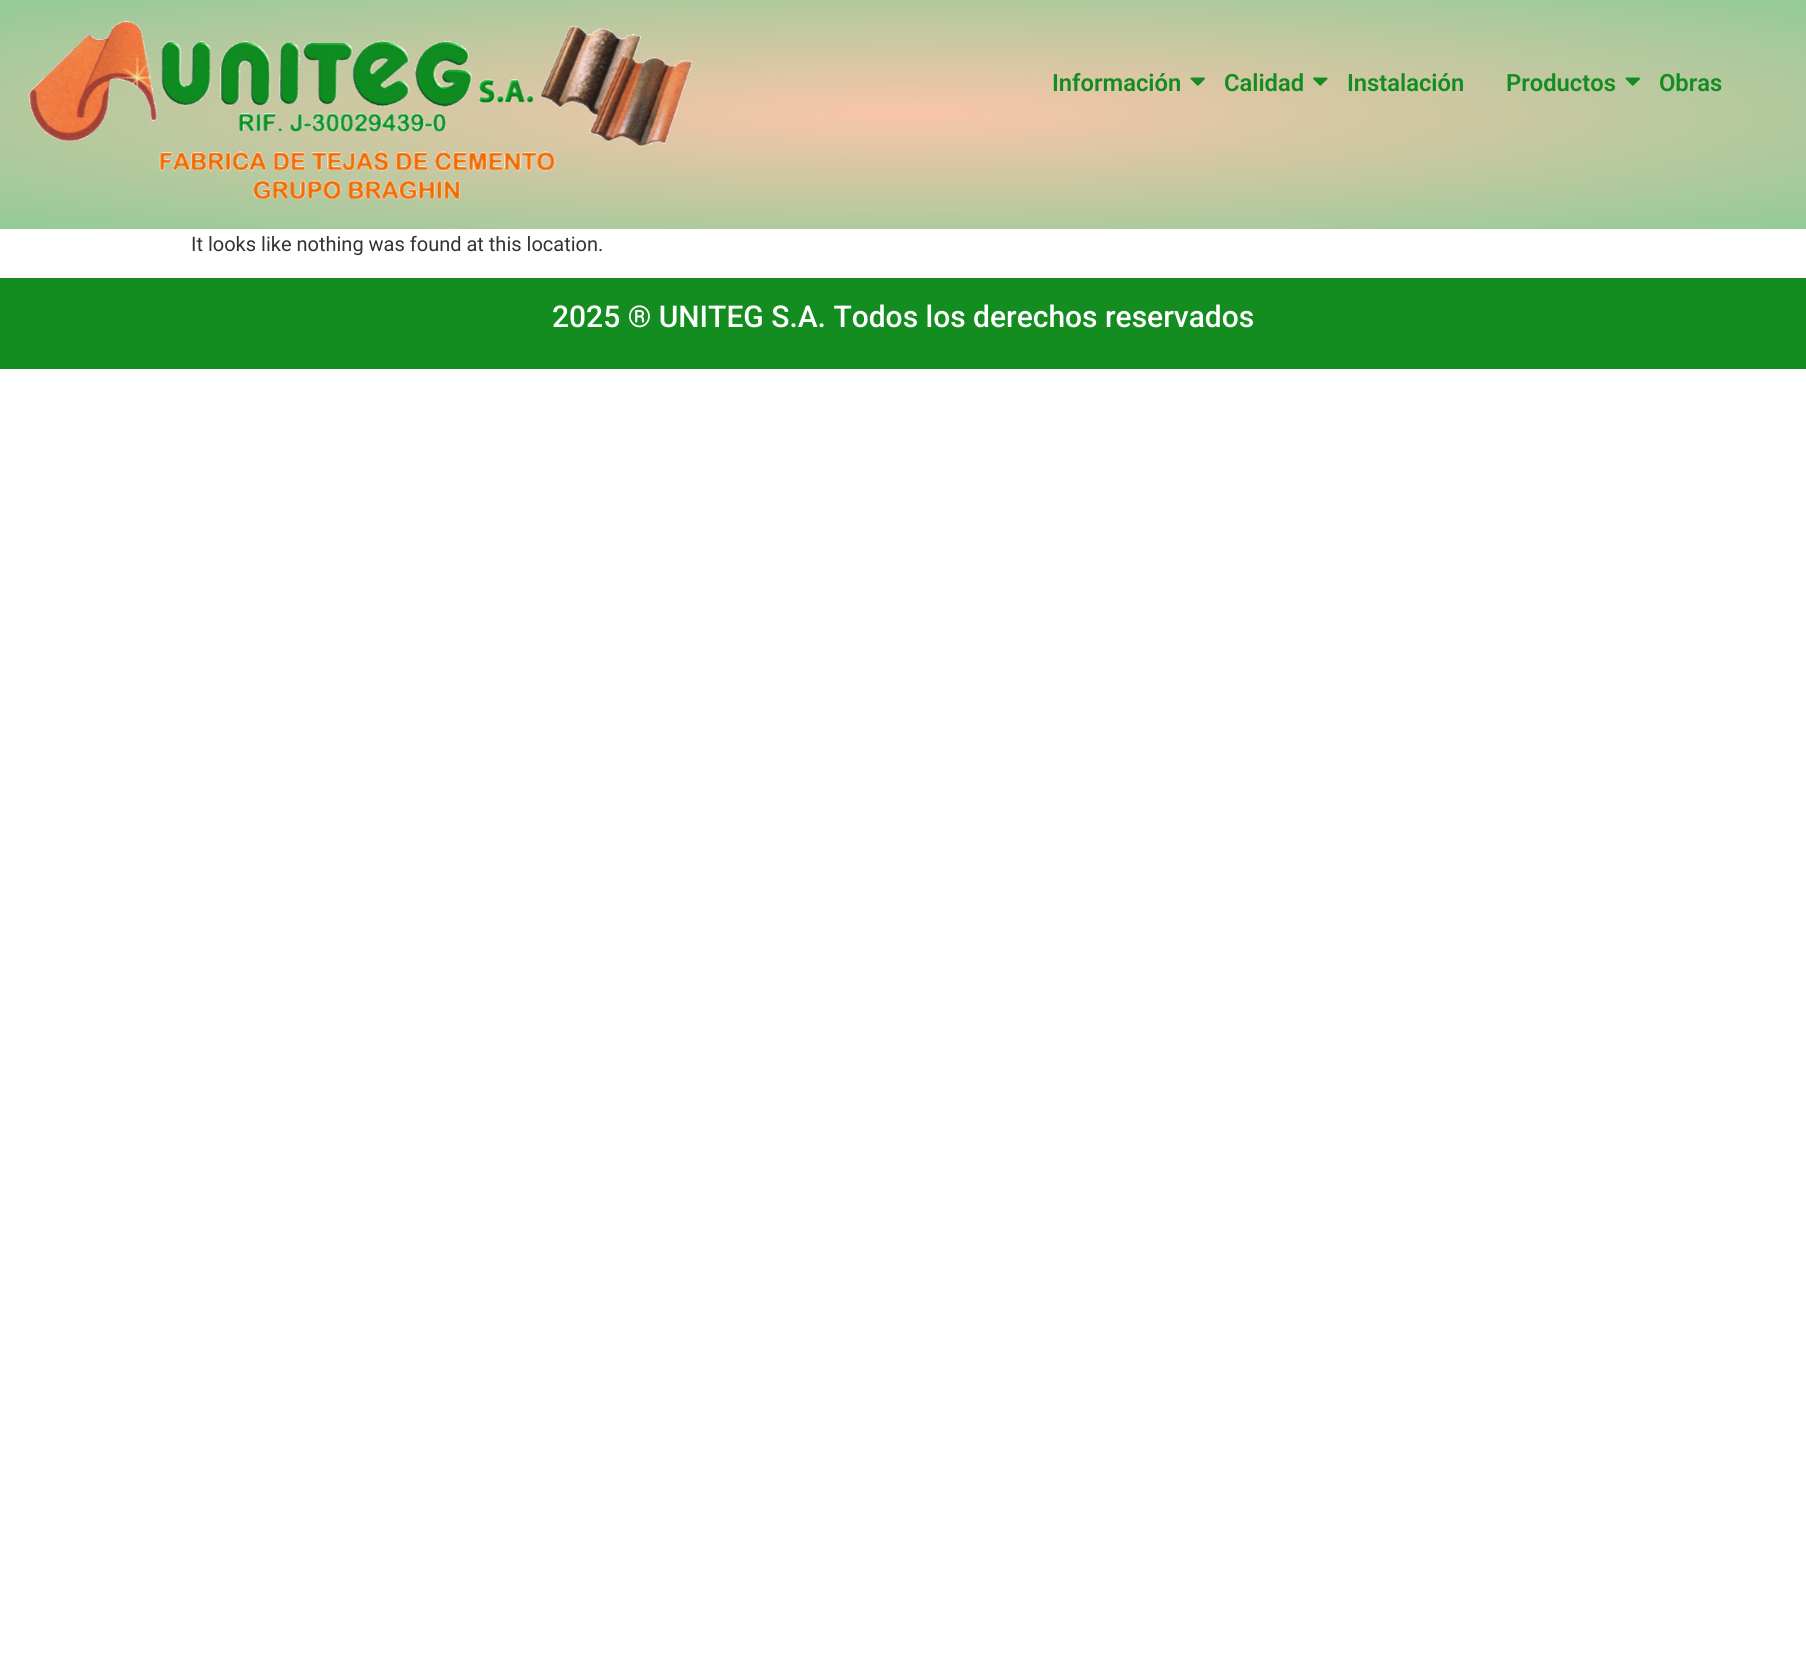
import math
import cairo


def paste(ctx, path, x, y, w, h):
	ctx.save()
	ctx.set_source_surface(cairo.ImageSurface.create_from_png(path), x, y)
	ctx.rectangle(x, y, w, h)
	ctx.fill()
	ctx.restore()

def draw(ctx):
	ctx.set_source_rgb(1, 1, 1)
	ctx.paint()
	gradient = cairo.RadialGradient(0, 0, 0, 0, 0, 1)
	gradient.set_matrix(cairo.Matrix(1 / 1277, 0, 0, 1 / 162, -1 * 903 / 1277, -1 * 114 / 162))
	gradient.add_color_stop_rgba(0, 0.976, 0.773, 0.663, 1)
	gradient.add_color_stop_rgba(1, 0.576, 0.796, 0.6, 1)
	ctx.set_source(gradient)
	ctx.rectangle(0, 0, 1806, 229)
	ctx.fill()
	paste(ctx, 'media/1.png', 28, 21, 665, 179)
	ctx.select_font_face('Roboto SemiBold')
	ctx.set_font_size(23.75)
	ctx.set_source_rgb(0.078, 0.549, 0.129)
	ctx.move_to(1052, 91)
	ctx.show_text('Información')
	paste(ctx, 'media/2.png', 1190, 77, 15, 9)
	ctx.move_to(1224, 91)
	ctx.show_text('Calidad')
	paste(ctx, 'media/3.png', 1313, 77, 15, 9)
	ctx.move_to(1347, 91)
	ctx.show_text('Instalación')
	ctx.move_to(1506, 91)
	ctx.show_text('Productos')
	paste(ctx, 'media/4.png', 1625, 77, 15, 9)
	ctx.move_to(1659, 91)
	ctx.show_text('Obras')
	ctx.select_font_face('Roboto')
	ctx.set_font_size(20)
	ctx.set_source_rgb(0.2, 0.2, 0.2)
	ctx.move_to(191, 251)
	ctx.show_text('It looks like nothing was found at this location.')
	ctx.set_source_rgb(0.082, 0.553, 0.125)
	ctx.rectangle(0, 278, 1806, 91)
	ctx.fill()
	ctx.select_font_face('Roboto Medium')
	ctx.set_font_size(30)
	ctx.set_source_rgb(1, 1, 1)
	ctx.move_to(552, 327)
	ctx.show_text('2025 ® UNITEG S.A. Todos los derechos reservados')


surface = cairo.ImageSurface(cairo.FORMAT_RGB24, 1806, 1666)
ctx = cairo.Context(surface)
options = cairo.FontOptions()
options.set_hint_metrics(cairo.HINT_METRICS_OFF)
options.set_hint_style(cairo.HINT_STYLE_NONE)
ctx.set_font_options(options)
ctx.set_miter_limit(4)
draw(ctx)
surface.write_to_png('image.png')
